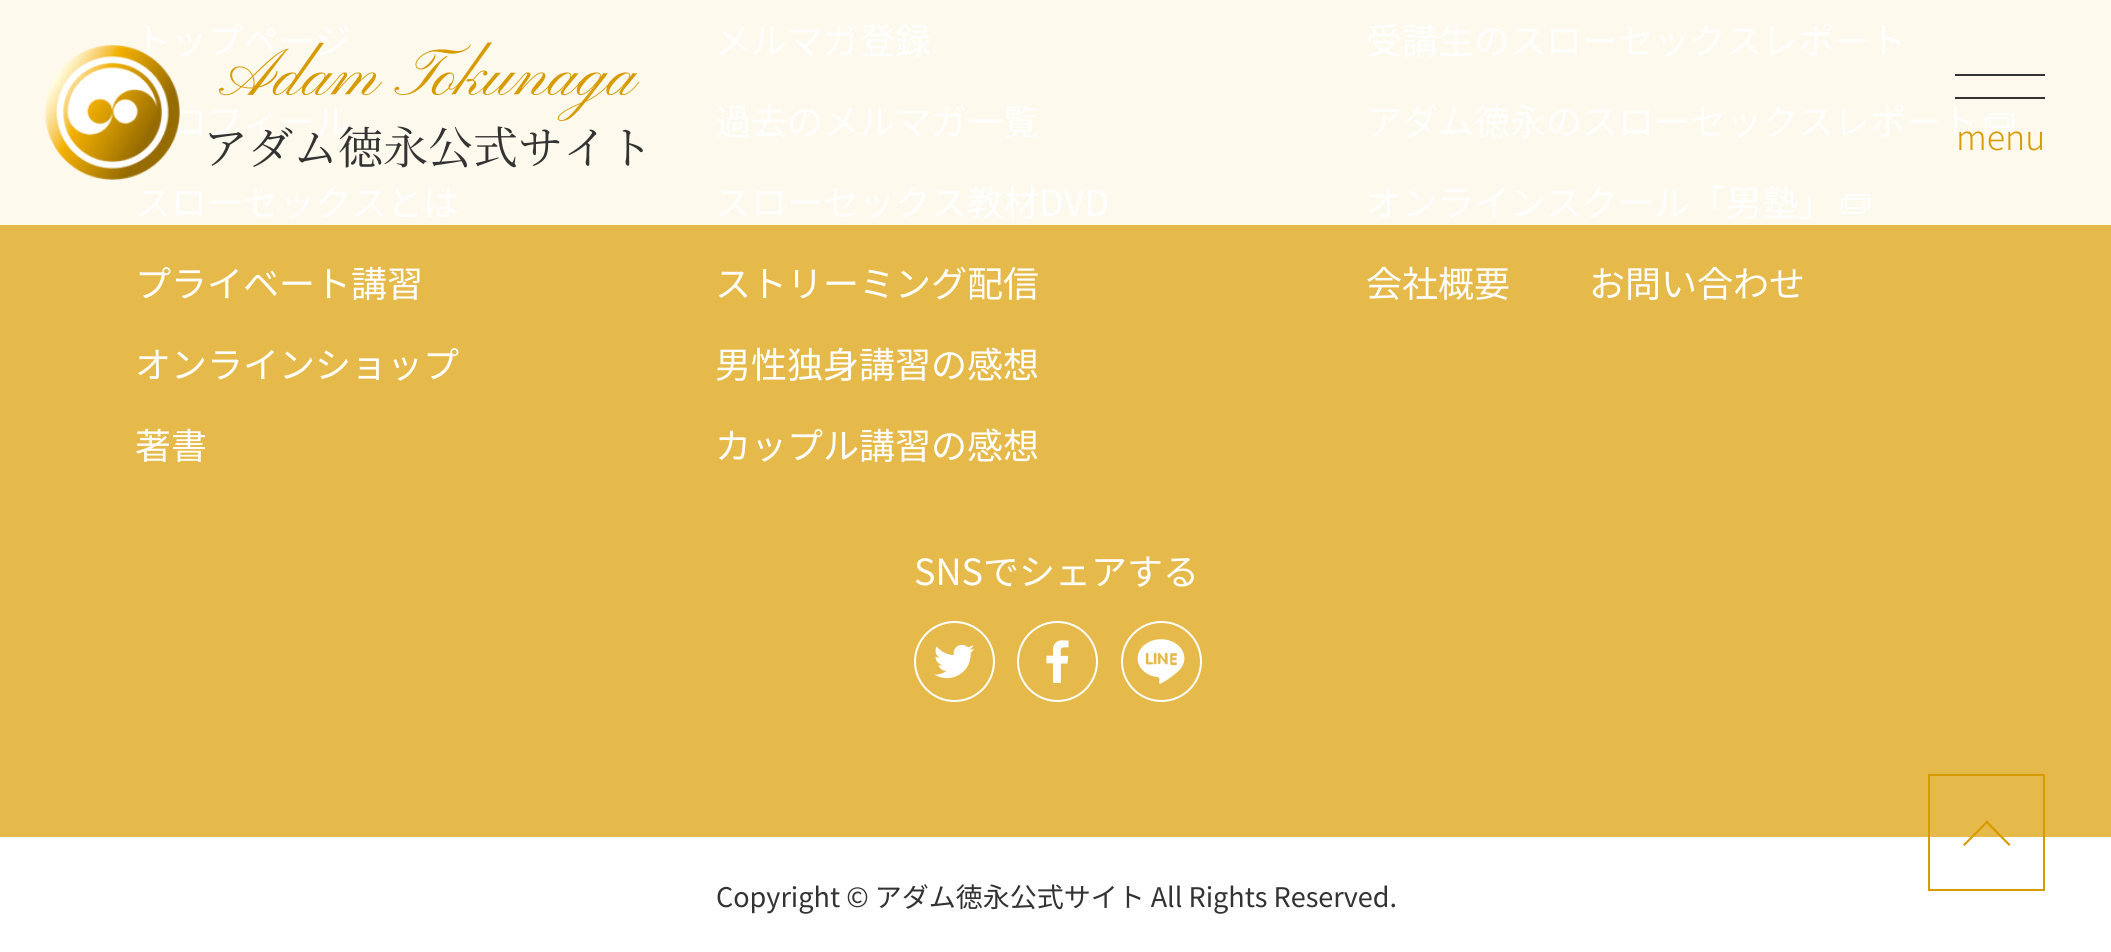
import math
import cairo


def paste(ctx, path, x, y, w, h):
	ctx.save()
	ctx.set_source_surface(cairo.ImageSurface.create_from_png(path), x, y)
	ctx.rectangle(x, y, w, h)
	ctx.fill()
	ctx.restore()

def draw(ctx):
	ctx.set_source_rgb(1, 1, 1)
	ctx.paint()
	ctx.set_source_rgb(0.902, 0.729, 0.29)
	ctx.rectangle(0, 225, 2111, 612)
	ctx.fill()
	ctx.set_source_rgb(0.992, 0.973, 0.929)
	ctx.rectangle(0, 0, 2111, 225)
	ctx.fill()
	ctx.select_font_face('Noto Sans JP')
	ctx.set_font_size(36)
	ctx.set_source_rgb(1, 1, 1)
	for x, y, s in [
		(135, 54, 'トップページ'),
		(171, 135, 'ロフィール'),
		(135, 216, 'スローセックスとは'),
		(135, 297, 'プライベート講習'),
		(135, 378, 'オンラインショップ'),
		(135, 459, '著書'),
		(715, 54, 'メルマガ登録'),
		(715, 135, '過去のメルマガ一覧'),
		(715, 216, 'スローセックス教材DVD'),
		(715, 297, 'ストリーミング配信'),
		(715, 378, '男性独身講習の感想'),
		(715, 459, 'カップル講習の感想'),
		(1366, 54, '受講生のスローセックスレポート'),
		(1366, 135, 'アダム徳永のスローセックスレポート'),
	]:
		ctx.move_to(x, y)
		ctx.show_text(s)
	ctx.rectangle(1986, 118, 22, 14)
	ctx.stroke()
	ctx.rectangle(1990, 114, 23, 13)
	ctx.stroke()
	ctx.move_to(1366, 216)
	ctx.show_text('オンラインスクール「男塾」')
	ctx.rectangle(1842, 199, 22, 14)
	ctx.stroke()
	ctx.rectangle(1846, 195, 23, 13)
	ctx.stroke()
	for x, y, s in [
		(1366, 297, '会社概要'),
		(1589, 297, 'お問い合わせ'),
		(914, 585, 'SNSでシェアする'),
	]:
		ctx.move_to(x, y)
		ctx.show_text(s)
	paste(ctx, 'media/1.png', 934, 644, 41, 35)
	ctx.arc(954.5, 661.5, 39.5, 0, 2 * math.pi)
	ctx.stroke()
	paste(ctx, 'media/2.png', 1046, 640, 23, 43)
	ctx.arc(1057.5, 661.5, 39.5, 0, 2 * math.pi)
	ctx.stroke()
	paste(ctx, 'media/3.png', 1137, 639, 48, 45)
	ctx.arc(1161.5, 661.5, 39.5, 0, 2 * math.pi)
	ctx.stroke()
	ctx.set_font_size(27)
	ctx.set_source_rgb(0.2, 0.2, 0.2)
	ctx.move_to(716, 907)
	ctx.show_text('Copyright © アダム徳永公式サイト All Rights Reserved.')
	paste(ctx, 'media/4.png', 45, 45, 135, 135)
	ctx.select_font_face('Pinyon Script')
	ctx.set_font_size(67.5)
	ctx.set_source_rgb(0.843, 0.608, 0)
	ctx.move_to(219, 95)
	ctx.show_text('Adam Tokunaga')
	ctx.select_font_face('Noto Serif JP')
	ctx.set_font_size(45)
	ctx.set_source_rgb(0.2, 0.2, 0.2)
	ctx.move_to(203, 164)
	ctx.show_text('アダム徳永公式サイト')
	ctx.rectangle(1955, 74, 90, 2)
	ctx.fill()
	ctx.rectangle(1955, 97, 90, 2)
	ctx.fill()
	ctx.select_font_face('Noto Sans JP Light')
	ctx.set_font_size(34)
	ctx.set_source_rgb(0.843, 0.608, 0)
	ctx.move_to(1956, 150)
	ctx.show_text('menu')
	ctx.rectangle(1929, 775, 115, 115)
	ctx.stroke()
	ctx.new_path()
	ctx.move_to(1987, 820.5)
	ctx.line_to(2010.5, 844.5)
	ctx.line_to(2009, 846)
	ctx.line_to(1985, 822)
	ctx.close_path()
	ctx.fill()
	ctx.new_path()
	ctx.move_to(1987, 820.5)
	ctx.line_to(1988.5, 822)
	ctx.line_to(1964.5, 846)
	ctx.line_to(1963, 844.5)
	ctx.close_path()
	ctx.fill()


surface = cairo.ImageSurface(cairo.FORMAT_RGB24, 2111, 952)
ctx = cairo.Context(surface)
options = cairo.FontOptions()
options.set_hint_metrics(cairo.HINT_METRICS_OFF)
options.set_hint_style(cairo.HINT_STYLE_NONE)
ctx.set_font_options(options)
ctx.set_miter_limit(4)
draw(ctx)
surface.write_to_png('image.png')
